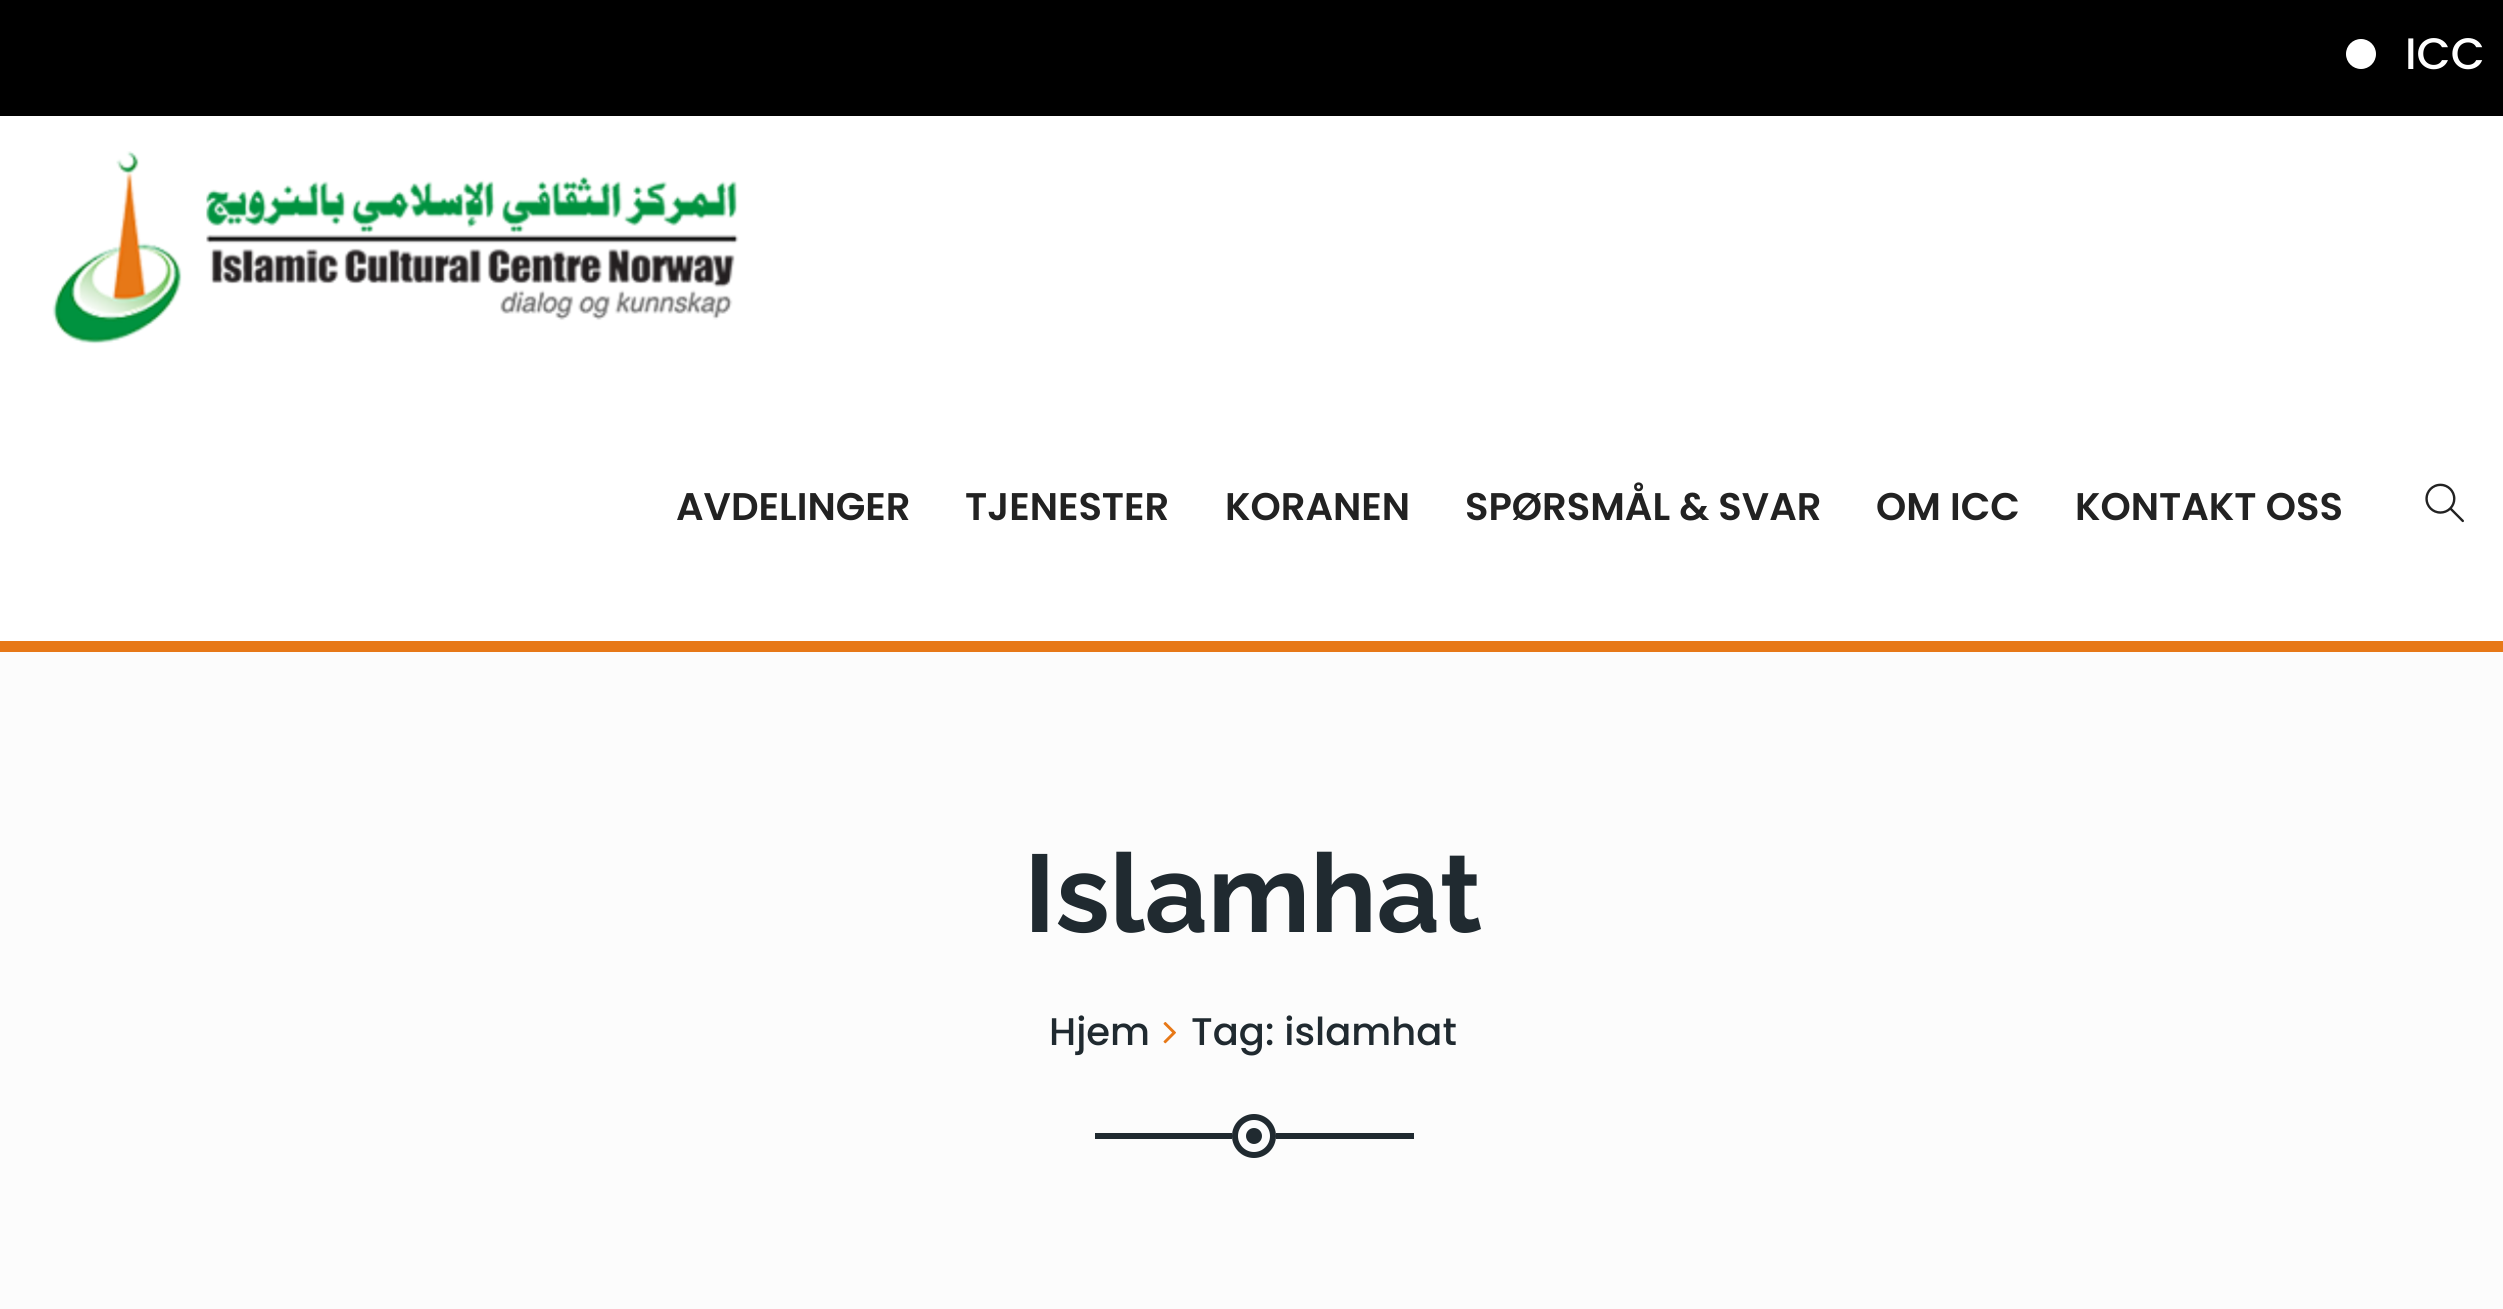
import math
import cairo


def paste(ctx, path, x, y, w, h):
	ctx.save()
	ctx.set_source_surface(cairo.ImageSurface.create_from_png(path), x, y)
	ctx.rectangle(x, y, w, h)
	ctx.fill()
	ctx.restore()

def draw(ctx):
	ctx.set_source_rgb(1, 1, 1)
	ctx.paint()
	ctx.set_source_rgb(0, 0, 0)
	ctx.rectangle(0, 0, 2503, 116)
	ctx.fill()
	ctx.set_source_rgb(1, 1, 1)
	ctx.arc(2361, 54, 15, 0, 2 * math.pi)
	ctx.fill()
	ctx.select_font_face('Poppins Medium')
	ctx.set_font_size(44)
	ctx.move_to(2405, 69)
	ctx.show_text('ICC')
	ctx.set_source_rgb(0.906, 0.471, 0.09)
	ctx.rectangle(0, 641, 2503, 11)
	ctx.fill()
	paste(ctx, 'media/1.png', 52, 151, 687, 193)
	ctx.select_font_face('Poppins SemiBold')
	ctx.set_font_size(38.5)
	ctx.set_source_rgb(0.133, 0.133, 0.133)
	for x, y, s in [
		(676, 520, 'AVDELINGER'),
		(965, 520, 'TJENESTER'),
		(1225, 520, 'KORANEN'),
		(1465, 520, 'SPØRSMÅL & SVAR'),
		(1876, 520, 'OM ICC'),
		(2075, 520, 'KONTAKT OSS'),
	]:
		ctx.move_to(x, y)
		ctx.show_text(s)
	paste(ctx, 'media/2.png', 2425, 483, 39, 40)
	ctx.set_source_rgb(0.988, 0.988, 0.988)
	ctx.rectangle(0, 652, 2503, 657)
	ctx.fill()
	ctx.select_font_face('Raleway', cairo.FONT_SLANT_NORMAL, cairo.FONT_WEIGHT_BOLD)
	ctx.set_font_size(110)
	ctx.set_source_rgb(0.125, 0.165, 0.188)
	ctx.move_to(1024, 932)
	ctx.show_text('Islamhat')
	ctx.select_font_face('Poppins Medium')
	ctx.set_font_size(38.5)
	ctx.move_to(1049, 1045)
	ctx.show_text('Hjem')
	paste(ctx, 'media/3.png', 1163, 1022, 13, 22)
	ctx.move_to(1191, 1045)
	ctx.show_text('Tag: islamhat')
	ctx.new_path()
	ctx.arc(1254, 1136, 19, 0, 2 * math.pi)
	ctx.set_line_width(6)
	ctx.stroke()
	ctx.rectangle(1095, 1133, 137, 6)
	ctx.fill()
	ctx.arc(1254, 1136, 8, 0, 2 * math.pi)
	ctx.fill()
	ctx.rectangle(1276, 1133, 138, 6)
	ctx.fill()


surface = cairo.ImageSurface(cairo.FORMAT_RGB24, 2503, 1309)
ctx = cairo.Context(surface)
options = cairo.FontOptions()
options.set_hint_metrics(cairo.HINT_METRICS_OFF)
options.set_hint_style(cairo.HINT_STYLE_NONE)
ctx.set_font_options(options)
ctx.set_miter_limit(4)
draw(ctx)
surface.write_to_png('image.png')
